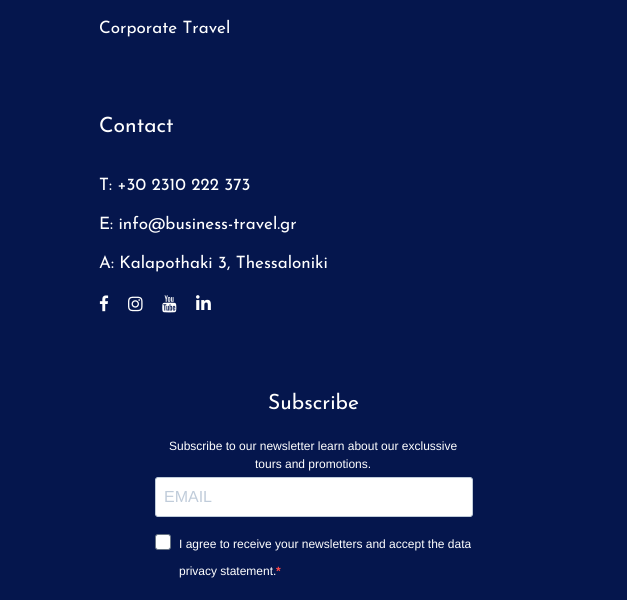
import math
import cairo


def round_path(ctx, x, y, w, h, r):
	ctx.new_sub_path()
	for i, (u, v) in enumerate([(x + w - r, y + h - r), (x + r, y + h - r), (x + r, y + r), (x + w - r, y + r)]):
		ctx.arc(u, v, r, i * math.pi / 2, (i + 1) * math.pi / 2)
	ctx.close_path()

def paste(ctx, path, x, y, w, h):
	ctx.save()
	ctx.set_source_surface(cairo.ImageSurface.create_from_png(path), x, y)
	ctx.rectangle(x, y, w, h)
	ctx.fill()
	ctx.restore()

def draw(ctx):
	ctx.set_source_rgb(0.02, 0.086, 0.302)
	ctx.paint()
	ctx.select_font_face('Josefin Sans')
	ctx.set_font_size(17)
	ctx.set_source_rgb(1, 1, 1)
	ctx.move_to(99, 33)
	ctx.show_text('Corporate Travel')
	ctx.set_font_size(21)
	ctx.move_to(99, 132)
	ctx.show_text('Contact')
	ctx.set_font_size(17)
	for x, y, s in [
		(99, 190, 'T: +30 2310 222 373'),
		(99, 229, 'E: info@business-travel.gr'),
		(99, 268, 'A: Kalapothaki 3, Thessaloniki'),
	]:
		ctx.move_to(x, y)
		ctx.show_text(s)
	paste(ctx, 'media/1.png', 99, 295, 10, 17)
	paste(ctx, 'media/2.png', 128, 296, 15, 16)
	paste(ctx, 'media/3.png', 162, 295, 15, 18)
	paste(ctx, 'media/4.png', 196, 295, 15, 15)
	ctx.set_font_size(21)
	ctx.move_to(268, 409)
	ctx.show_text('Subscribe')
	ctx.select_font_face('Liberation Sans')
	ctx.set_font_size(12)
	ctx.move_to(169, 450)
	ctx.show_text('Subscribe to our newsletter learn about our exclussive')
	ctx.move_to(255, 468)
	ctx.show_text('tours and promotions.')
	round_path(ctx, 155.5, 477.5, 317, 39, 2.5)
	ctx.fill_preserve()
	ctx.set_source_rgb(0.753, 0.8, 0.855)
	ctx.set_line_width(1)
	ctx.stroke()
	ctx.set_font_size(16)
	ctx.move_to(164, 502)
	ctx.show_text('EMAIL')
	ctx.set_source_rgb(1, 1, 1)
	round_path(ctx, 155.5, 534.5, 15, 15, 2.5)
	ctx.fill_preserve()
	ctx.set_source_rgb(0.408, 0.455, 0.518)
	ctx.stroke()
	ctx.set_font_size(12)
	ctx.set_source_rgb(1, 1, 1)
	ctx.move_to(179, 548)
	ctx.show_text('I agree to receive your newsletters and accept the data')
	ctx.move_to(179, 575)
	ctx.show_text('privacy statement.')
	ctx.select_font_face('Liberation Sans', cairo.FONT_SLANT_NORMAL, cairo.FONT_WEIGHT_BOLD)
	ctx.set_source_rgb(1, 0.286, 0.286)
	ctx.move_to(276, 575)
	ctx.show_text('*')


surface = cairo.ImageSurface(cairo.FORMAT_RGB24, 627, 600)
ctx = cairo.Context(surface)
options = cairo.FontOptions()
options.set_hint_metrics(cairo.HINT_METRICS_OFF)
options.set_hint_style(cairo.HINT_STYLE_NONE)
ctx.set_font_options(options)
ctx.set_miter_limit(4)
draw(ctx)
surface.write_to_png('image.png')
